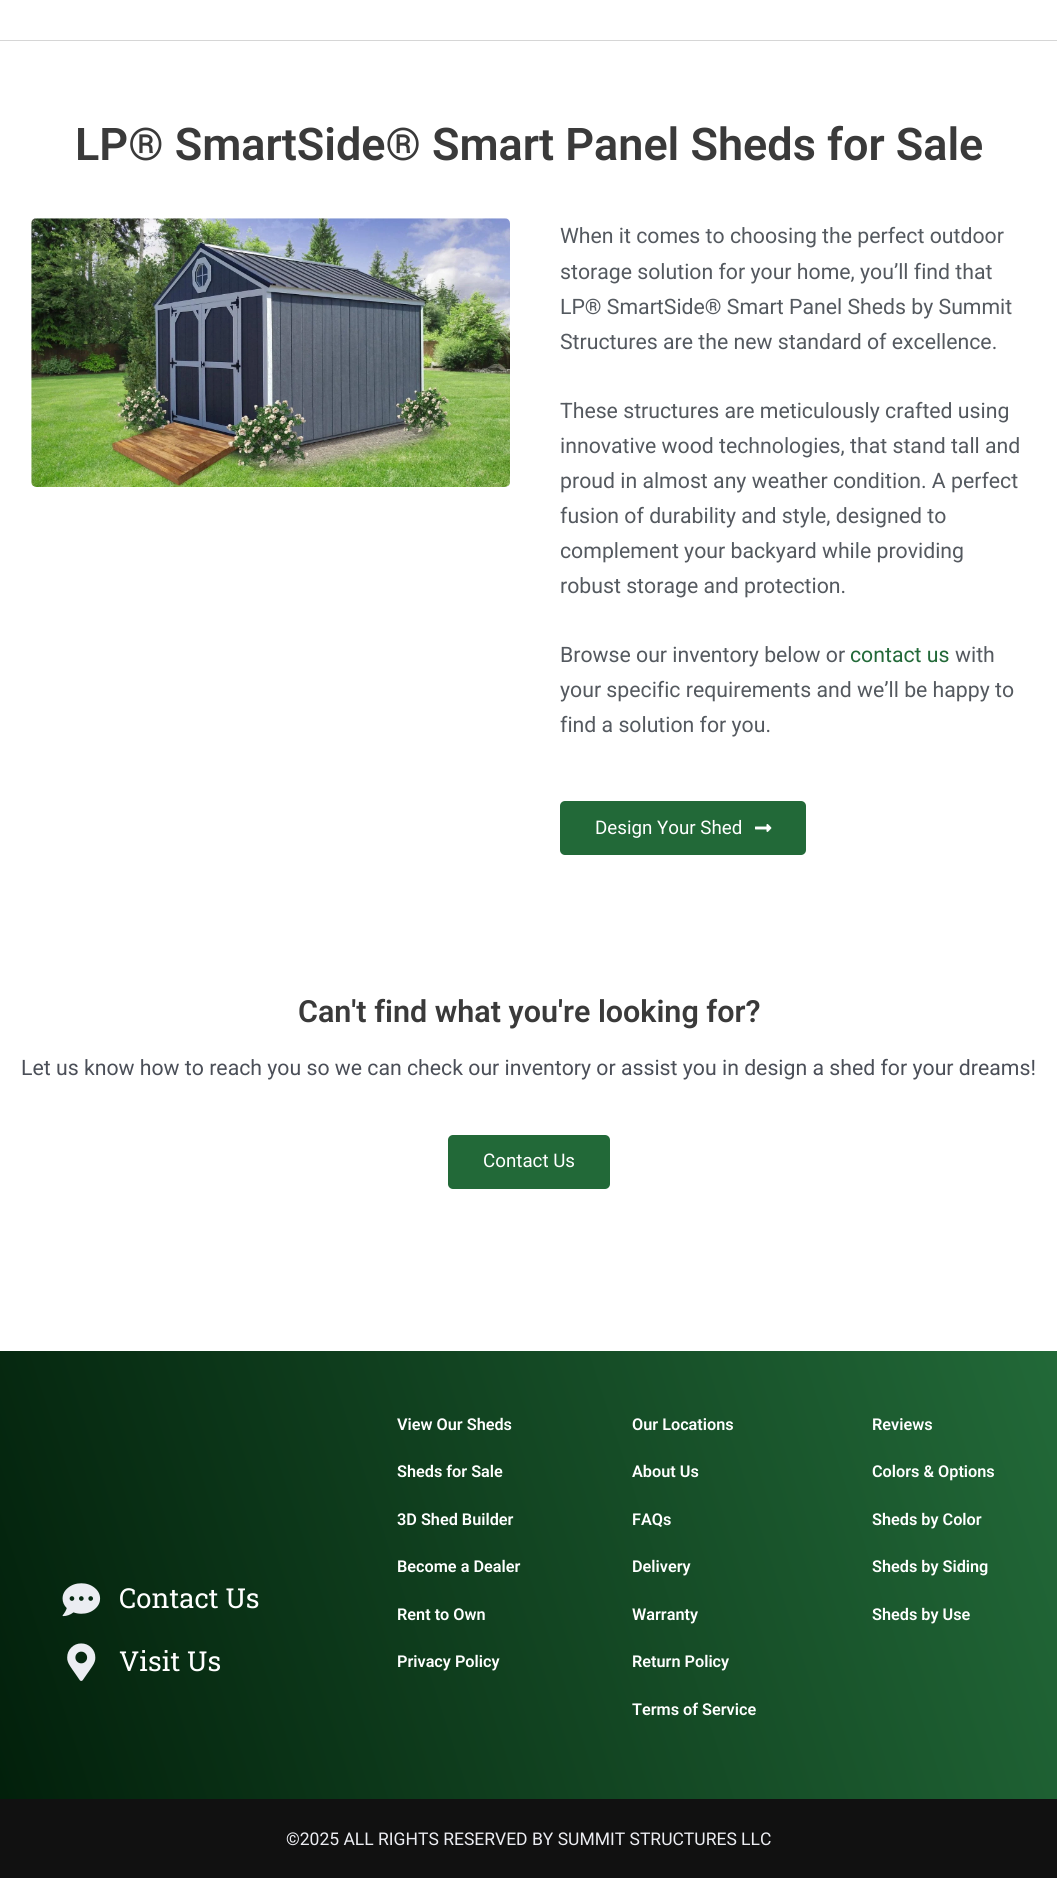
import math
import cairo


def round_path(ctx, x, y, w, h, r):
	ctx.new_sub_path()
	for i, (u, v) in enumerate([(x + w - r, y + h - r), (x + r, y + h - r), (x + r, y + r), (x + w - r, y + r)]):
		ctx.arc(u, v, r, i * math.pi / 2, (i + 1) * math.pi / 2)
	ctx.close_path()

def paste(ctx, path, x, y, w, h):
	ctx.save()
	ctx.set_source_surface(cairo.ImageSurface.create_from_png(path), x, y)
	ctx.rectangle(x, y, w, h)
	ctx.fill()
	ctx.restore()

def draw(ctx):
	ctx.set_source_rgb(1, 1, 1)
	ctx.paint()
	ctx.set_source_rgb(0.839, 0.839, 0.839)
	ctx.rectangle(0, 40, 1057, 1)
	ctx.fill()
	ctx.select_font_face('Roboto SemiBold')
	ctx.set_font_size(45)
	ctx.set_source_rgb(0.227, 0.227, 0.227)
	ctx.move_to(75, 160)
	ctx.show_text('LP® SmartSide® Smart Panel Sheds for Sale')
	paste(ctx, 'media/1.png', 31, 218, 479, 269)
	ctx.select_font_face('Roboto')
	ctx.set_font_size(21.25)
	ctx.set_source_rgb(0.329, 0.349, 0.373)
	for x, y, s in [
		(560, 243, 'When it comes to choosing the perfect outdoor'),
		(560, 279, 'storage solution for your home, you’ll find that'),
		(560, 314, 'LP® SmartSide® Smart Panel Sheds by Summit'),
		(560, 349, 'Structures are the new standard of excellence.'),
		(560, 418, 'These structures are meticulously crafted using'),
		(560, 453, 'innovative wood technologies, that stand tall and'),
		(560, 488, 'proud in almost any weather condition. A perfect'),
		(560, 523, 'fusion of durability and style, designed to'),
		(560, 558, 'complement your backyard while providing'),
		(560, 593, 'robust storage and protection.'),
		(560, 662, 'Browse our inventory below or'),
	]:
		ctx.move_to(x, y)
		ctx.show_text(s)
	ctx.set_source_rgb(0.133, 0.412, 0.22)
	ctx.move_to(850, 662)
	ctx.show_text('contact us')
	ctx.set_source_rgb(0.329, 0.349, 0.373)
	for x, y, s in [
		(955, 662, 'with'),
		(560, 697, 'your specific requirements and we’ll be happy to'),
		(560, 732, 'find a solution for you.'),
	]:
		ctx.move_to(x, y)
		ctx.show_text(s)
	ctx.set_source_rgb(0.133, 0.412, 0.22)
	round_path(ctx, 560, 801, 246, 54, 5)
	ctx.fill()
	ctx.set_font_size(18.75)
	ctx.set_source_rgb(1, 1, 1)
	ctx.move_to(595, 834)
	ctx.show_text('Design Your Shed')
	paste(ctx, 'media/2.png', 755, 824, 17, 8)
	ctx.select_font_face('Roboto SemiBold')
	ctx.set_font_size(30.5)
	ctx.set_source_rgb(0.227, 0.227, 0.227)
	ctx.move_to(298, 1022)
	ctx.show_text('Can\'t find what you\'re looking for?')
	ctx.select_font_face('Roboto')
	ctx.set_font_size(21.25)
	ctx.set_source_rgb(0.294, 0.31, 0.345)
	ctx.move_to(21, 1075)
	ctx.show_text('Let us know how to reach you so we can check our inventory or assist you in design a shed for your dreams!')
	ctx.set_source_rgb(0.133, 0.412, 0.22)
	round_path(ctx, 448, 1135, 162, 54, 5)
	ctx.fill()
	ctx.set_font_size(18.75)
	ctx.set_source_rgb(1, 1, 1)
	ctx.move_to(483, 1167)
	ctx.show_text('Contact Us')
	gradient = cairo.LinearGradient(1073, 1398, -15, 1752)
	gradient.add_color_stop_rgba(0, 0.133, 0.412, 0.22, 1)
	gradient.add_color_stop_rgba(1, 0.008, 0.125, 0.043, 1)
	ctx.set_source(gradient)
	ctx.rectangle(0, 1351, 1057, 448)
	ctx.fill()
	paste(ctx, 'media/3.png', 62, 1583, 39, 34)
	ctx.select_font_face('Roboto Slab')
	ctx.set_font_size(27.5)
	ctx.set_source_rgb(1, 1, 1)
	ctx.move_to(119, 1608)
	ctx.show_text('Contact Us')
	paste(ctx, 'media/4.png', 67, 1643, 29, 38)
	ctx.move_to(119, 1671)
	ctx.show_text('Visit Us')
	ctx.select_font_face('Roboto SemiBold')
	ctx.set_font_size(16.25)
	for x, y, s in [
		(397, 1430, 'View Our Sheds'),
		(397, 1477, 'Sheds for Sale'),
		(397, 1525, '3D Shed Builder'),
		(397, 1572, 'Become a Dealer'),
		(397, 1620, 'Rent to Own'),
		(397, 1667, 'Privacy Policy'),
		(632, 1430, 'Our Locations'),
		(632, 1477, 'About Us'),
		(632, 1525, 'FAQs'),
		(632, 1572, 'Delivery'),
		(632, 1620, 'Warranty'),
		(632, 1667, 'Return Policy'),
		(632, 1715, 'Terms of Service'),
		(872, 1430, 'Reviews'),
		(872, 1477, 'Colors & Options'),
		(872, 1525, 'Sheds by Color'),
		(872, 1572, 'Sheds by Siding'),
		(872, 1620, 'Sheds by Use'),
	]:
		ctx.move_to(x, y)
		ctx.show_text(s)
	ctx.set_source_rgb(0.067, 0.067, 0.067)
	ctx.rectangle(0, 1799, 1057, 79)
	ctx.fill()
	ctx.select_font_face('Roboto')
	ctx.set_font_size(17.5)
	ctx.set_source_rgb(0.922, 0.929, 0.949)
	ctx.move_to(286, 1845)
	ctx.show_text('©2025 ALL RIGHTS RESERVED BY SUMMIT STRUCTURES LLC')


surface = cairo.ImageSurface(cairo.FORMAT_RGB24, 1057, 1878)
ctx = cairo.Context(surface)
options = cairo.FontOptions()
options.set_hint_metrics(cairo.HINT_METRICS_OFF)
options.set_hint_style(cairo.HINT_STYLE_NONE)
ctx.set_font_options(options)
ctx.set_miter_limit(4)
draw(ctx)
surface.write_to_png('image.png')
